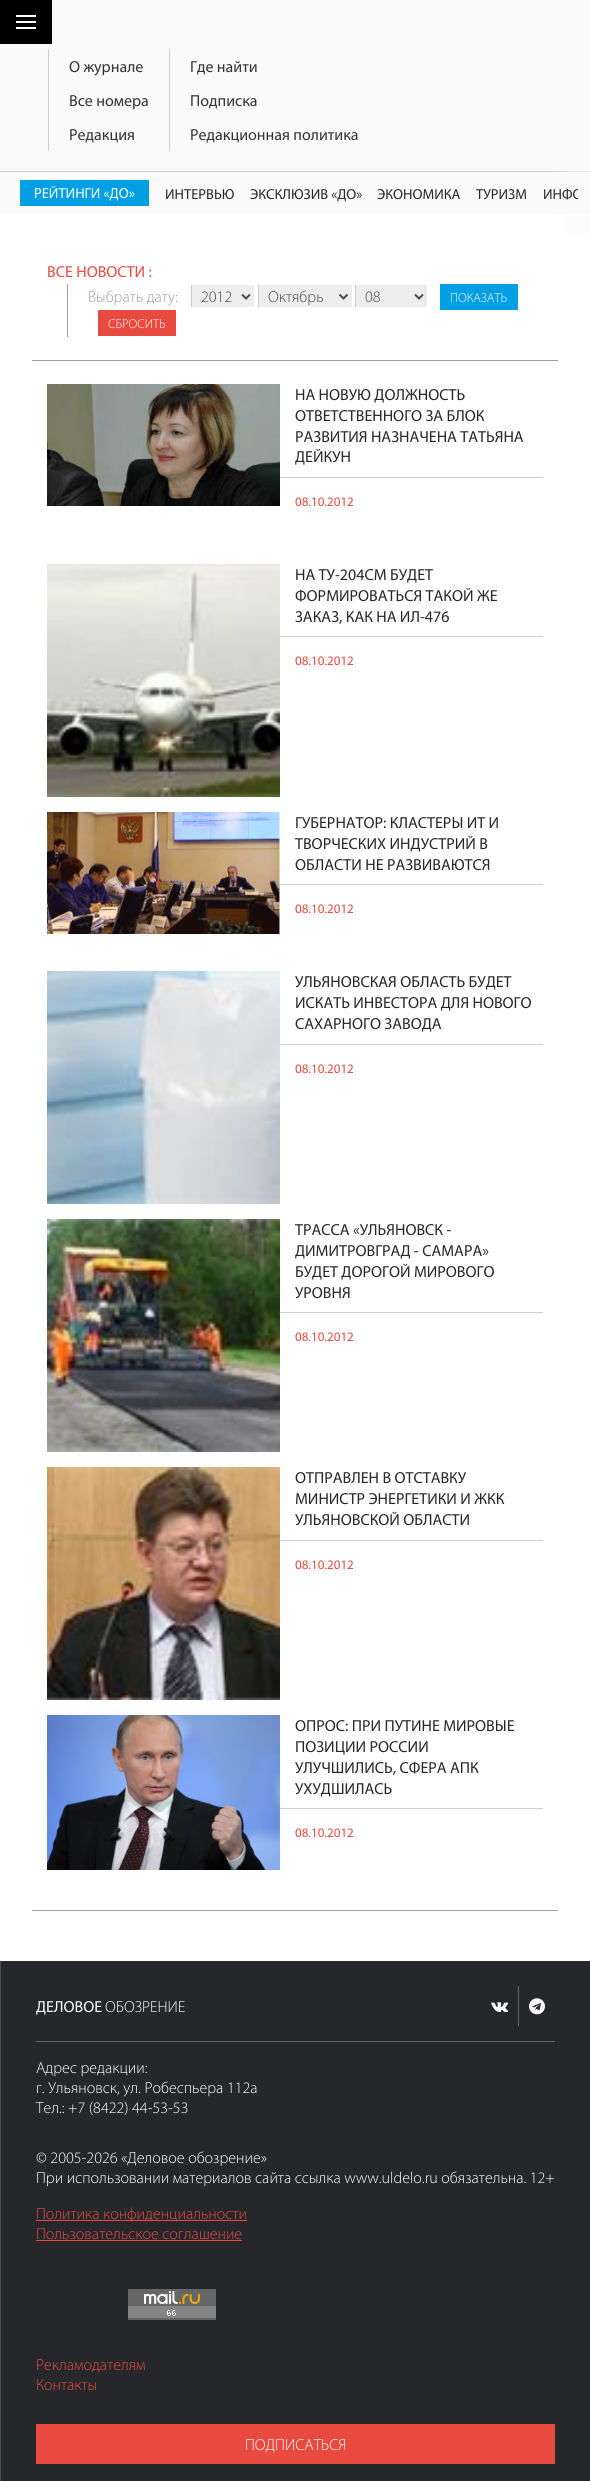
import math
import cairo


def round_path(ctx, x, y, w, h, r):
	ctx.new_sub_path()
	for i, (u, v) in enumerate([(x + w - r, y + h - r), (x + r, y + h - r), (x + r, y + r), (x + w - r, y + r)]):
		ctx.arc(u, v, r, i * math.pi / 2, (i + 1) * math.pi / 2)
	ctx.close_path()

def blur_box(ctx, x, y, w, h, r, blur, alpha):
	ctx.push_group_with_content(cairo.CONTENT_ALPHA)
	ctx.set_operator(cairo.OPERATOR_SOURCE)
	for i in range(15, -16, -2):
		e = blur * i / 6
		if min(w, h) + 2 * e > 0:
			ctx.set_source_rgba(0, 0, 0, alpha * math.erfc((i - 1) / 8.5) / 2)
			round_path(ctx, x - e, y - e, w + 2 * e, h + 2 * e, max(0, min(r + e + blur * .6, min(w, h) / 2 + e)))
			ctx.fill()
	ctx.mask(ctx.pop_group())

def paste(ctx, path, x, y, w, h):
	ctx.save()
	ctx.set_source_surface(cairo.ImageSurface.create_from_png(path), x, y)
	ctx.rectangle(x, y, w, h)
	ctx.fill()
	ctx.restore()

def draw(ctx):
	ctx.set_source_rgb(1, 1, 1)
	ctx.paint()
	ctx.set_source_rgb(0.98, 0.98, 0.98)
	ctx.rectangle(0, 0, 590, 171)
	ctx.fill()
	ctx.set_source_rgb(0, 0, 0)
	ctx.rectangle(0, 0, 52, 44)
	ctx.fill()
	ctx.set_source_rgb(1, 1, 1)
	ctx.rectangle(16, 21, 20, 2)
	ctx.rectangle(16, 15, 20, 2)
	ctx.rectangle(16, 27, 20, 2)
	ctx.fill()
	ctx.set_source_rgb(0.8, 0.8, 0.8)
	ctx.rectangle(0, 171, 590, 1)
	ctx.rectangle(48, 49, 1, 102)
	ctx.fill()
	ctx.select_font_face('Myriad')
	ctx.set_font_size(16)
	ctx.set_source_rgb(0.2, 0.2, 0.2)
	for x, y, s in [
		(69, 72, 'О журнале'),
		(69, 106, 'Все номера'),
		(69, 140, 'Редакция'),
	]:
		ctx.move_to(x, y)
		ctx.show_text(s)
	ctx.set_source_rgb(0.8, 0.8, 0.8)
	ctx.rectangle(169, 49, 1, 102)
	ctx.fill()
	ctx.set_source_rgb(0.2, 0.2, 0.2)
	for x, y, s in [
		(190, 72, 'Где найти'),
		(190, 106, 'Подписка'),
		(190, 140, 'Редакционная политика'),
	]:
		ctx.move_to(x, y)
		ctx.show_text(s)
	ctx.set_source_rgb(0.98, 0.98, 0.98)
	ctx.rectangle(0, 172, 590, 42)
	ctx.fill()
	ctx.set_source_rgb(0.98, 0.98, 0.98)
	blur_box(ctx, 564, 152, 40, 82, 0, 7.5, 0.7)
	ctx.set_source_rgb(0, 0.62, 0.89)
	ctx.rectangle(20, 180, 129, 26)
	ctx.fill()
	ctx.set_font_size(14.5)
	ctx.set_source_rgb(1, 1, 1)
	ctx.move_to(34, 198)
	ctx.show_text('РЕЙТИНГИ «ДО»')
	ctx.set_source_rgb(0.145, 0.153, 0.165)
	for x, y, s in [
		(165, 199, 'ИНТЕРВЬЮ'),
		(250, 199, 'ЭКСКЛЮЗИВ «ДО»'),
		(377, 199, 'ЭКОНОМИКА'),
		(476, 199, 'ТУРИЗМ'),
	]:
		ctx.move_to(x, y)
		ctx.show_text(s)
	ctx.save()
	ctx.rectangle(12, 172, 566, 42)
	ctx.clip()
	ctx.move_to(543, 199)
	ctx.show_text('ИНФО')
	ctx.restore()
	ctx.set_font_size(16)
	ctx.set_source_rgb(0.914, 0.29, 0.247)
	ctx.move_to(47, 277)
	ctx.show_text('ВСЕ НОВОСТИ :')
	ctx.set_source_rgb(0.616, 0.616, 0.616)
	ctx.rectangle(67, 284, 1, 53)
	ctx.fill()
	ctx.select_font_face('Myriad Light')
	ctx.move_to(88, 302)
	ctx.show_text('Выбрать дату:')
	ctx.set_source_rgb(0.929, 0.929, 0.929)
	ctx.rectangle(192, 285, 62, 22)
	ctx.fill()
	ctx.set_source_rgb(0.8, 0.8, 0.8)
	ctx.rectangle(191, 285, 1, 22)
	ctx.fill()
	ctx.new_path()
	ctx.move_to(242, 294.5)
	ctx.line_to(246, 298.5)
	ctx.line_to(250, 294.5)
	ctx.set_source_rgb(0.29, 0.29, 0.29)
	ctx.stroke()
	ctx.move_to(201, 302)
	ctx.show_text('2012')
	ctx.set_source_rgb(0.929, 0.929, 0.929)
	ctx.rectangle(259, 285, 93, 22)
	ctx.fill()
	ctx.set_source_rgb(0.8, 0.8, 0.8)
	ctx.rectangle(258, 285, 1, 22)
	ctx.fill()
	ctx.new_path()
	ctx.move_to(339.5, 294.5)
	ctx.line_to(343.5, 298.5)
	ctx.line_to(347.5, 294.5)
	ctx.set_source_rgb(0.29, 0.29, 0.29)
	ctx.stroke()
	ctx.move_to(268, 302)
	ctx.show_text('Октябрь')
	ctx.set_source_rgb(0.929, 0.929, 0.929)
	ctx.rectangle(356, 285, 71, 22)
	ctx.fill()
	ctx.set_source_rgb(0.8, 0.8, 0.8)
	ctx.rectangle(355, 285, 1, 22)
	ctx.fill()
	ctx.new_path()
	ctx.move_to(415, 294.5)
	ctx.line_to(419, 298.5)
	ctx.line_to(423, 294.5)
	ctx.set_source_rgb(0.29, 0.29, 0.29)
	ctx.stroke()
	ctx.move_to(365, 302)
	ctx.show_text('08')
	ctx.set_source_rgb(0, 0.62, 0.89)
	ctx.rectangle(440, 284, 78, 26)
	ctx.fill()
	ctx.set_font_size(13)
	ctx.set_source_rgb(1, 1, 1)
	ctx.move_to(450, 302)
	ctx.show_text('ПОКАЗАТЬ')
	ctx.set_source_rgb(0.914, 0.29, 0.247)
	ctx.rectangle(98, 310, 78, 26)
	ctx.fill()
	ctx.set_source_rgb(1, 1, 1)
	ctx.move_to(108, 328)
	ctx.show_text('СБРОСИТЬ')
	ctx.set_source_rgb(0.616, 0.616, 0.616)
	ctx.rectangle(32, 360, 526, 1)
	ctx.fill()
	paste(ctx, 'media/1.png', 47, 384, 233, 122)
	ctx.set_source_rgb(0.8, 0.8, 0.8)
	ctx.rectangle(280, 477, 263, 1)
	ctx.fill()
	ctx.select_font_face('Myriad')
	ctx.set_font_size(16)
	ctx.set_source_rgb(0.145, 0.153, 0.165)
	for x, y, s in [
		(295, 400, 'НА НОВУЮ ДОЛЖНОСТЬ'),
		(295, 421, 'ОТВЕТСТВЕННОГО ЗА БЛОК'),
		(295, 442, 'РАЗВИТИЯ НАЗНАЧЕНА ТАТЬЯНА'),
		(295, 462, 'ДЕЙКУН'),
	]:
		ctx.move_to(x, y)
		ctx.show_text(s)
	ctx.set_font_size(13)
	ctx.set_source_rgb(0.914, 0.29, 0.247)
	ctx.move_to(295, 506)
	ctx.show_text('08.10.2012')
	paste(ctx, 'media/2.png', 47, 564, 233, 233)
	ctx.set_source_rgb(0.8, 0.8, 0.8)
	ctx.rectangle(280, 636, 263, 1)
	ctx.fill()
	ctx.set_font_size(16)
	ctx.set_source_rgb(0.145, 0.153, 0.165)
	for x, y, s in [
		(295, 580, 'НА ТУ-204СМ БУДЕТ'),
		(295, 601, 'ФОРМИРОВАТЬСЯ ТАКОЙ ЖЕ'),
		(295, 622, 'ЗАКАЗ, КАК НА ИЛ-476'),
	]:
		ctx.move_to(x, y)
		ctx.show_text(s)
	ctx.set_font_size(13)
	ctx.set_source_rgb(0.914, 0.29, 0.247)
	ctx.move_to(295, 665)
	ctx.show_text('08.10.2012')
	paste(ctx, 'media/3.png', 47, 812, 233, 122)
	ctx.set_source_rgb(0.8, 0.8, 0.8)
	ctx.rectangle(280, 884, 263, 1)
	ctx.fill()
	ctx.set_font_size(16)
	ctx.set_source_rgb(0.145, 0.153, 0.165)
	for x, y, s in [
		(295, 828, 'ГУБЕРНАТОР: КЛАСТЕРЫ ИТ И'),
		(295, 849, 'ТВОРЧЕСКИХ ИНДУСТРИЙ В'),
		(295, 870, 'ОБЛАСТИ НЕ РАЗВИВАЮТСЯ'),
	]:
		ctx.move_to(x, y)
		ctx.show_text(s)
	ctx.set_font_size(13)
	ctx.set_source_rgb(0.914, 0.29, 0.247)
	ctx.move_to(295, 913)
	ctx.show_text('08.10.2012')
	paste(ctx, 'media/4.png', 47, 971, 233, 233)
	ctx.set_source_rgb(0.8, 0.8, 0.8)
	ctx.rectangle(280, 1044, 263, 1)
	ctx.fill()
	ctx.set_font_size(16)
	ctx.set_source_rgb(0.145, 0.153, 0.165)
	for x, y, s in [
		(295, 987, 'УЛЬЯНОВСКАЯ ОБЛАСТЬ БУДЕТ'),
		(295, 1008, 'ИСКАТЬ ИНВЕСТОРА ДЛЯ НОВОГО'),
		(295, 1029, 'САХАРНОГО ЗАВОДА'),
	]:
		ctx.move_to(x, y)
		ctx.show_text(s)
	ctx.set_font_size(13)
	ctx.set_source_rgb(0.914, 0.29, 0.247)
	ctx.move_to(295, 1073)
	ctx.show_text('08.10.2012')
	paste(ctx, 'media/5.png', 47, 1219, 233, 233)
	ctx.set_source_rgb(0.8, 0.8, 0.8)
	ctx.rectangle(280, 1312, 263, 1)
	ctx.fill()
	ctx.set_font_size(16)
	ctx.set_source_rgb(0.145, 0.153, 0.165)
	for x, y, s in [
		(295, 1235, 'ТРАССА «УЛЬЯНОВСК -'),
		(295, 1256, 'ДИМИТРОВГРАД - САМАРА»'),
		(295, 1277, 'БУДЕТ ДОРОГОЙ МИРОВОГО'),
		(295, 1298, 'УРОВНЯ'),
	]:
		ctx.move_to(x, y)
		ctx.show_text(s)
	ctx.set_font_size(13)
	ctx.set_source_rgb(0.914, 0.29, 0.247)
	ctx.move_to(295, 1341)
	ctx.show_text('08.10.2012')
	paste(ctx, 'media/6.png', 47, 1467, 233, 233)
	ctx.set_source_rgb(0.8, 0.8, 0.8)
	ctx.rectangle(280, 1540, 263, 1)
	ctx.fill()
	ctx.set_font_size(16)
	ctx.set_source_rgb(0.145, 0.153, 0.165)
	for x, y, s in [
		(295, 1483, 'ОТПРАВЛЕН В ОТСТАВКУ'),
		(295, 1504, 'МИНИСТР ЭНЕРГЕТИКИ И ЖКК'),
		(295, 1525, 'УЛЬЯНОВСКОЙ ОБЛАСТИ'),
	]:
		ctx.move_to(x, y)
		ctx.show_text(s)
	ctx.set_font_size(13)
	ctx.set_source_rgb(0.914, 0.29, 0.247)
	ctx.move_to(295, 1569)
	ctx.show_text('08.10.2012')
	paste(ctx, 'media/7.png', 47, 1715, 233, 155)
	ctx.set_source_rgb(0.8, 0.8, 0.8)
	ctx.rectangle(280, 1808, 263, 1)
	ctx.fill()
	ctx.set_font_size(16)
	ctx.set_source_rgb(0.145, 0.153, 0.165)
	for x, y, s in [
		(295, 1731, 'ОПРОС: ПРИ ПУТИНЕ МИРОВЫЕ'),
		(295, 1752, 'ПОЗИЦИИ РОССИИ'),
		(295, 1773, 'УЛУЧШИЛИСЬ, СФЕРА АПК'),
		(295, 1794, 'УХУДШИЛАСЬ'),
	]:
		ctx.move_to(x, y)
		ctx.show_text(s)
	ctx.set_font_size(13)
	ctx.set_source_rgb(0.914, 0.29, 0.247)
	ctx.move_to(295, 1837)
	ctx.show_text('08.10.2012')
	ctx.set_source_rgb(0.616, 0.616, 0.616)
	ctx.rectangle(32, 1910, 526, 1)
	ctx.fill()
	ctx.set_source_rgb(0.145, 0.153, 0.165)
	ctx.rectangle(1, 1961, 589, 520)
	ctx.fill()
	ctx.set_source_rgb(0.29, 0.29, 0.29)
	ctx.rectangle(0, 1961, 1, 520)
	ctx.fill()
	ctx.set_source_rgb(0.388, 0.388, 0.388)
	ctx.rectangle(36, 2041, 519, 1)
	ctx.fill()
	ctx.set_font_size(16)
	ctx.set_source_rgb(1, 1, 1)
	ctx.move_to(36, 2012)
	ctx.show_text('ДЕЛОВОЕ')
	ctx.select_font_face('Myriad Light')
	ctx.move_to(105, 2012)
	ctx.show_text('ОБОЗРЕНИЕ')
	ctx.set_source_rgb(0.388, 0.388, 0.388)
	ctx.rectangle(518, 1986, 1, 40)
	ctx.fill()
	paste(ctx, 'media/8.png', 491, 2002, 18, 10)
	paste(ctx, 'media/9.png', 529, 1998, 16, 17)
	ctx.set_source_rgb(1, 1, 1)
	for x, y, s in [
		(36, 2073, 'Адрес редакции:'),
		(36, 2093, 'г. Ульяновск, ул. Робеспьера 112а'),
		(36, 2113, 'Тел.: +7 (8422) 44-53-53'),
		(36, 2163, '© 2005-2026 «Деловое обозрение»'),
		(36, 2183, 'При использовании материалов сайта ссылка www.uldelo.ru обязательна. 12+'),
	]:
		ctx.move_to(x, y)
		ctx.show_text(s)
	ctx.set_source_rgb(0.914, 0.29, 0.247)
	ctx.rectangle(36, 2220, 211, 1)
	ctx.fill()
	ctx.move_to(36, 2219)
	ctx.show_text('Политика конфиденциальности')
	ctx.move_to(36, 2239)
	ctx.show_text('Пользовательское соглашение')
	ctx.rectangle(36, 2240, 206, 1)
	ctx.fill()
	paste(ctx, 'media/10.png', 128, 2289, 88, 31)
	ctx.move_to(36, 2370)
	ctx.show_text('Рекламодателям')
	ctx.move_to(36, 2390)
	ctx.show_text('Контакты')
	ctx.rectangle(36, 2424, 519, 40)
	ctx.fill()
	ctx.set_source_rgb(1, 1, 1)
	ctx.move_to(245, 2450)
	ctx.show_text('ПОДПИСАТЬСЯ')


surface = cairo.ImageSurface(cairo.FORMAT_RGB24, 590, 2481)
ctx = cairo.Context(surface)
options = cairo.FontOptions()
options.set_hint_metrics(cairo.HINT_METRICS_OFF)
options.set_hint_style(cairo.HINT_STYLE_NONE)
ctx.set_font_options(options)
ctx.set_miter_limit(4)
draw(ctx)
surface.write_to_png('image.png')
